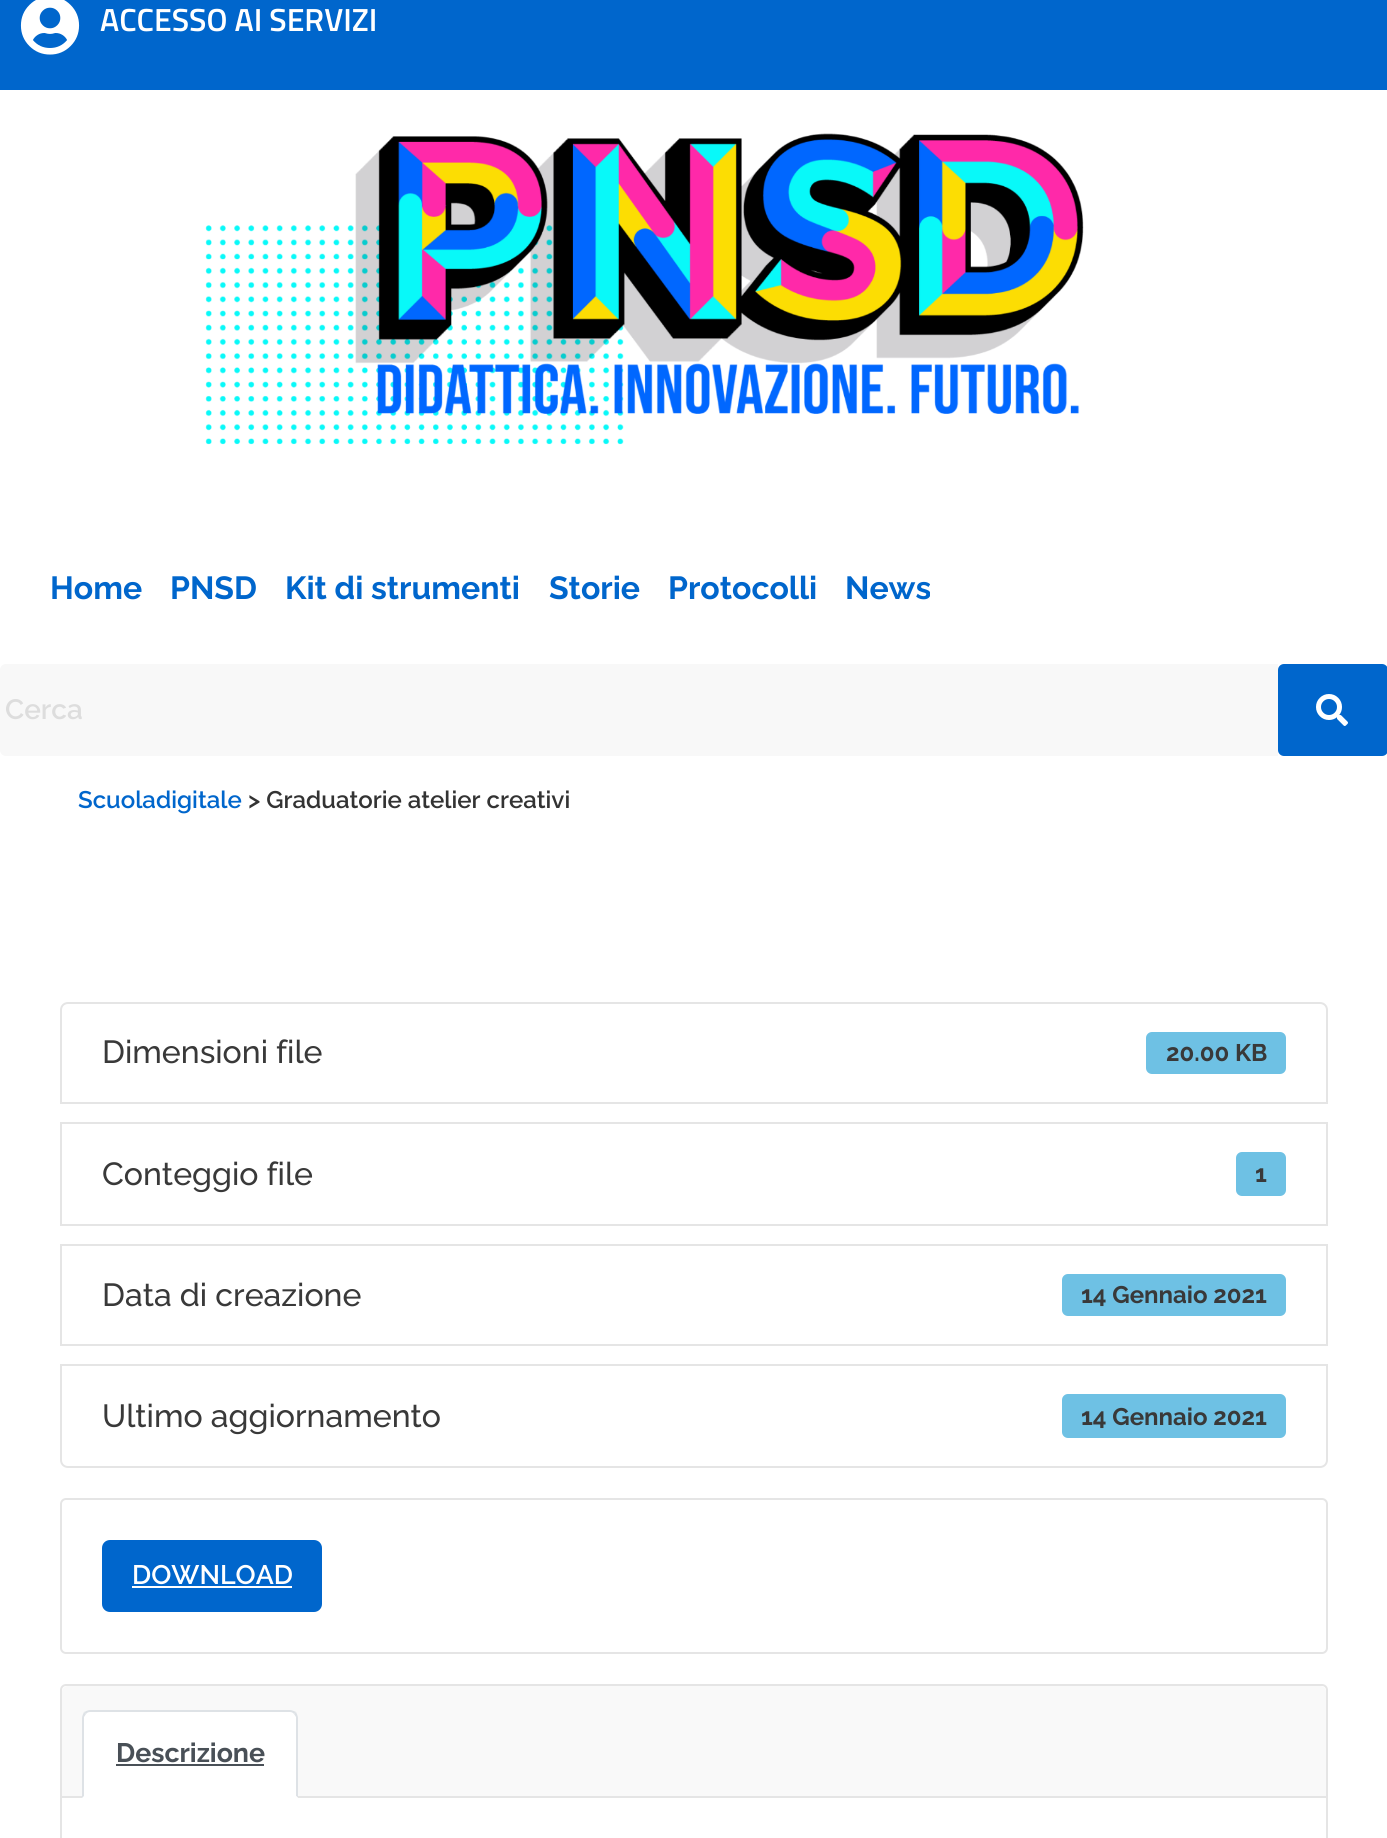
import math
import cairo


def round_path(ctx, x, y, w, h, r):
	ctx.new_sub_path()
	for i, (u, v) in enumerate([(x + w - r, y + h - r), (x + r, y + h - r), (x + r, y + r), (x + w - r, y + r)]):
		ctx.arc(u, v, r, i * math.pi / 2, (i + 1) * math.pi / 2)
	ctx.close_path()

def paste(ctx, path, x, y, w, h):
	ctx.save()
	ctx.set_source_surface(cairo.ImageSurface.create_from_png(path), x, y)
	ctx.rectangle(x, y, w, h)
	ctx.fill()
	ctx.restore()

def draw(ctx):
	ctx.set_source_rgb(1, 1, 1)
	ctx.paint()
	ctx.set_source_rgb(0, 0.4, 0.8)
	ctx.rectangle(0, 0, 1387, 90)
	ctx.fill()
	paste(ctx, 'media/1.png', 20, 0, 60, 55)
	ctx.select_font_face('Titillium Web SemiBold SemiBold')
	ctx.set_font_size(32)
	ctx.set_source_rgb(1, 1, 1)
	ctx.move_to(100, 31)
	ctx.show_text('ACCESSO AI SERVIZI')
	paste(ctx, 'media/2.png', 205, 133, 879, 312)
	ctx.select_font_face('Raleway', cairo.FONT_SLANT_NORMAL, cairo.FONT_WEIGHT_BOLD)
	ctx.set_source_rgb(0, 0.4, 0.8)
	for x, y, s in [
		(50, 599, 'Home'),
		(170, 599, 'PNSD'),
		(285, 599, 'Kit di strumenti'),
		(549, 599, 'Storie'),
		(668, 599, 'Protocolli'),
		(845, 599, 'News'),
	]:
		ctx.move_to(x, y)
		ctx.show_text(s)
	ctx.set_source_rgb(0.969, 0.969, 0.969)
	ctx.new_path()
	ctx.move_to(6, 664)
	ctx.line_to(1278, 664)
	ctx.line_to(1278, 756)
	ctx.line_to(6, 756)
	ctx.curve_to(2.5, 756, 0, 753.5, 0, 750)
	ctx.line_to(0, 670)
	ctx.curve_to(0, 666.5, 2.5, 664, 6, 664)
	ctx.close_path()
	ctx.fill()
	ctx.select_font_face('Raleway SemiBold')
	ctx.set_font_size(28)
	ctx.set_source_rgb(0.867, 0.867, 0.867)
	ctx.move_to(5, 719)
	ctx.show_text('Cerca')
	ctx.set_source_rgb(0, 0.4, 0.8)
	round_path(ctx, 1278, 664, 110, 92, 6)
	ctx.fill()
	paste(ctx, 'media/3.png', 1316, 694, 32, 32)
	ctx.set_font_size(24)
	ctx.move_to(78, 808)
	ctx.show_text('Scuoladigitale')
	ctx.set_source_rgb(0.2, 0.2, 0.2)
	ctx.move_to(248, 808)
	ctx.show_text('> Graduatorie atelier creativi')
	ctx.new_path()
	ctx.move_to(68, 1003)
	ctx.line_to(1320, 1003)
	ctx.curve_to(1324, 1003, 1327, 1006, 1327, 1010)
	ctx.line_to(1327, 1103)
	ctx.line_to(61, 1103)
	ctx.line_to(61, 1010)
	ctx.curve_to(61, 1006, 64, 1003, 68, 1003)
	ctx.close_path()
	ctx.set_source_rgb(0.898, 0.898, 0.898)
	ctx.stroke()
	ctx.select_font_face('Raleway Medium')
	ctx.set_font_size(32)
	ctx.set_source_rgb(0.224, 0.224, 0.224)
	ctx.move_to(102, 1063)
	ctx.show_text('Dimensioni file')
	ctx.set_source_rgb(0.431, 0.757, 0.894)
	round_path(ctx, 1146, 1032, 140, 42, 6)
	ctx.fill()
	ctx.select_font_face('Raleway', cairo.FONT_SLANT_NORMAL, cairo.FONT_WEIGHT_BOLD)
	ctx.set_font_size(24)
	ctx.set_source_rgb(0.224, 0.224, 0.224)
	ctx.move_to(1166, 1061)
	ctx.show_text('20.00 KB')
	ctx.rectangle(61, 1123, 1266, 102)
	ctx.set_source_rgb(0.898, 0.898, 0.898)
	ctx.stroke()
	ctx.select_font_face('Raleway Medium')
	ctx.set_font_size(32)
	ctx.set_source_rgb(0.224, 0.224, 0.224)
	ctx.move_to(102, 1185)
	ctx.show_text('Conteggio file')
	ctx.set_source_rgb(0.431, 0.757, 0.894)
	round_path(ctx, 1236, 1152, 50, 44, 6)
	ctx.fill()
	ctx.select_font_face('Raleway', cairo.FONT_SLANT_NORMAL, cairo.FONT_WEIGHT_BOLD)
	ctx.set_font_size(24)
	ctx.set_source_rgb(0.224, 0.224, 0.224)
	ctx.move_to(1255, 1182)
	ctx.show_text('1')
	ctx.rectangle(61, 1245, 1266, 100)
	ctx.set_source_rgb(0.898, 0.898, 0.898)
	ctx.stroke()
	ctx.select_font_face('Raleway Medium')
	ctx.set_font_size(32)
	ctx.set_source_rgb(0.224, 0.224, 0.224)
	ctx.move_to(102, 1306)
	ctx.show_text('Data di creazione')
	ctx.set_source_rgb(0.431, 0.757, 0.894)
	round_path(ctx, 1062, 1274, 224, 42, 6)
	ctx.fill()
	ctx.select_font_face('Raleway', cairo.FONT_SLANT_NORMAL, cairo.FONT_WEIGHT_BOLD)
	ctx.set_font_size(24)
	ctx.set_source_rgb(0.224, 0.224, 0.224)
	ctx.move_to(1081, 1303)
	ctx.show_text('14 Gennaio 2021')
	ctx.new_path()
	ctx.move_to(61, 1365)
	ctx.line_to(1327, 1365)
	ctx.line_to(1327, 1460)
	ctx.curve_to(1327, 1464, 1324, 1467, 1320, 1467)
	ctx.line_to(68, 1467)
	ctx.curve_to(64, 1467, 61, 1464, 61, 1460)
	ctx.close_path()
	ctx.set_source_rgb(0.898, 0.898, 0.898)
	ctx.stroke()
	ctx.select_font_face('Raleway Medium')
	ctx.set_font_size(32)
	ctx.set_source_rgb(0.224, 0.224, 0.224)
	ctx.move_to(102, 1427)
	ctx.show_text('Ultimo aggiornamento')
	ctx.set_source_rgb(0.431, 0.757, 0.894)
	round_path(ctx, 1062, 1394, 224, 44, 6)
	ctx.fill()
	ctx.select_font_face('Raleway', cairo.FONT_SLANT_NORMAL, cairo.FONT_WEIGHT_BOLD)
	ctx.set_font_size(24)
	ctx.set_source_rgb(0.224, 0.224, 0.224)
	ctx.move_to(1081, 1425)
	ctx.show_text('14 Gennaio 2021')
	round_path(ctx, 61, 1499, 1266, 154, 5)
	ctx.set_source_rgb(0.898, 0.898, 0.898)
	ctx.stroke()
	ctx.set_source_rgb(0, 0.4, 0.8)
	round_path(ctx, 102, 1540, 220, 72, 8)
	ctx.fill()
	ctx.select_font_face('Raleway SemiBold')
	ctx.set_font_size(26.75)
	ctx.set_source_rgb(1, 1, 1)
	ctx.move_to(132, 1584)
	ctx.show_text('DOWNLOAD')
	ctx.rectangle(132, 1586, 160, 2)
	ctx.fill()
	round_path(ctx, 61, 1685, 1266, 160, 5)
	ctx.set_source_rgb(0.898, 0.898, 0.898)
	ctx.stroke()
	ctx.set_source_rgb(0.973, 0.973, 0.973)
	ctx.new_path()
	ctx.move_to(68, 1686)
	ctx.line_to(1320, 1686)
	ctx.curve_to(1323.5, 1686, 1326, 1688.5, 1326, 1692)
	ctx.line_to(1326, 1798)
	ctx.line_to(62, 1798)
	ctx.line_to(62, 1692)
	ctx.curve_to(62, 1688.5, 64.5, 1686, 68, 1686)
	ctx.close_path()
	ctx.fill()
	ctx.set_source_rgb(0.898, 0.898, 0.898)
	ctx.rectangle(62, 1796, 1264, 2)
	ctx.fill()
	ctx.set_source_rgb(1, 1, 1)
	ctx.new_path()
	ctx.move_to(90, 1710)
	ctx.line_to(290, 1710)
	ctx.curve_to(294.5, 1710, 298, 1713.5, 298, 1718)
	ctx.line_to(298, 1798)
	ctx.line_to(82, 1798)
	ctx.line_to(82, 1718)
	ctx.curve_to(82, 1713.5, 85.5, 1710, 90, 1710)
	ctx.close_path()
	ctx.fill()
	ctx.set_source_rgb(0.871, 0.886, 0.902)
	ctx.new_path()
	ctx.move_to(90, 1710)
	ctx.curve_to(88, 1710, 86, 1711, 84, 1712)
	ctx.line_to(86, 1714)
	ctx.curve_to(87, 1713, 88, 1712, 90, 1712)
	ctx.line_to(290, 1712)
	ctx.curve_to(292, 1712, 293, 1713, 294, 1714)
	ctx.line_to(296, 1712)
	ctx.curve_to(294, 1711, 292, 1710, 290, 1710)
	ctx.close_path()
	ctx.fill()
	ctx.new_path()
	ctx.move_to(298, 1798)
	ctx.line_to(298, 1718)
	ctx.curve_to(298, 1716, 297, 1714, 296, 1712)
	ctx.line_to(294, 1714)
	ctx.line_to(296, 1717)
	ctx.line_to(296, 1796)
	ctx.close_path()
	ctx.fill()
	ctx.set_source_rgb(1, 1, 1)
	ctx.new_path()
	ctx.move_to(298, 1798)
	ctx.line_to(296, 1796)
	ctx.line_to(84, 1796)
	ctx.line_to(82, 1798)
	ctx.close_path()
	ctx.fill()
	ctx.set_source_rgb(0.871, 0.886, 0.902)
	ctx.new_path()
	ctx.move_to(82, 1798)
	ctx.line_to(84, 1796)
	ctx.line_to(84, 1717)
	ctx.line_to(86, 1714)
	ctx.line_to(84, 1712)
	ctx.curve_to(83, 1714, 82, 1716, 82, 1718)
	ctx.close_path()
	ctx.fill()
	ctx.select_font_face('Raleway', cairo.FONT_SLANT_NORMAL, cairo.FONT_WEIGHT_BOLD)
	ctx.set_source_rgb(0.286, 0.314, 0.341)
	ctx.move_to(116, 1762)
	ctx.show_text('Descrizione')
	ctx.rectangle(116, 1764, 148, 2)
	ctx.fill()


surface = cairo.ImageSurface(cairo.FORMAT_RGB24, 1387, 1838)
ctx = cairo.Context(surface)
options = cairo.FontOptions()
options.set_hint_metrics(cairo.HINT_METRICS_OFF)
options.set_hint_style(cairo.HINT_STYLE_NONE)
ctx.set_font_options(options)
ctx.set_miter_limit(4)
draw(ctx)
surface.write_to_png('image.png')
